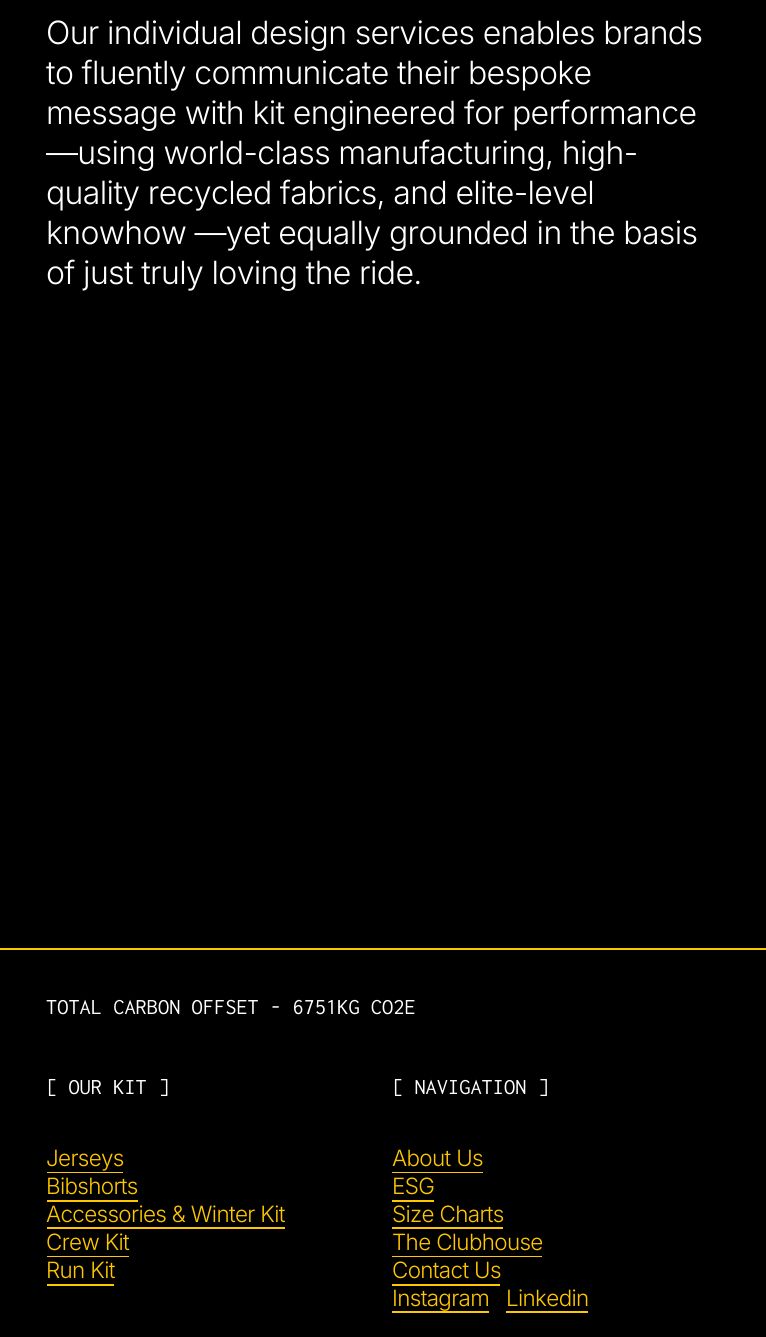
import math
import cairo


def write_spaced(ctx, x, y, s, letter, word):
	ctx.move_to(x, y)
	for ch in s:
		ctx.show_text(ch)
		ctx.rel_move_to(letter + word * (ch == ' '), 0)

def draw(ctx):
	ctx.set_source_rgb(0, 0, 0)
	ctx.paint()
	ctx.select_font_face('Inter Light')
	ctx.set_font_size(32)
	ctx.set_source_rgb(1, 1, 1)
	for x, y, s in [
		(46, 44, 'Our individual design services enables brands'),
		(46, 84, 'to fluently communicate their bespoke'),
		(46, 124, 'message with kit engineered for performance'),
		(46, 164, '—using world-class manufacturing, high-'),
		(46, 204, 'quality recycled fabrics, and elite-level'),
		(46, 244, 'knowhow —yet equally grounded in the basis'),
		(46, 284, 'of just truly loving the ride.'),
	]:
		write_spaced(ctx, x, y, s, -0.65, 0)
	ctx.set_source_rgb(1, 0.78, 0)
	ctx.rectangle(0, 948, 766, 2)
	ctx.fill()
	ctx.select_font_face('Inconsolata')
	ctx.set_font_size(22.4)
	ctx.set_source_rgb(1, 1, 1)
	for x, y, s in [
		(46, 1014, 'TOTAL CARBON OFFSET - 6751KG CO2E'),
		(46, 1094, '[ OUR KIT ]'),
		(392, 1094, '[ NAVIGATION ]'),
	]:
		ctx.move_to(x, y)
		ctx.show_text(s)
	ctx.set_source_rgb(1, 0.78, 0)
	ctx.rectangle(47, 1172, 76, 1)
	ctx.fill()
	ctx.select_font_face('Inter Light')
	write_spaced(ctx, 46, 1166, 'Jerseys', -0.65, 0)
	ctx.rectangle(47, 1200, 91, 2)
	ctx.fill()
	write_spaced(ctx, 46, 1194, 'Bibshorts', -0.65, 0)
	ctx.rectangle(47, 1227, 238, 2)
	ctx.fill()
	write_spaced(ctx, 46, 1222, 'Accessories & Winter Kit', -0.65, 0)
	ctx.rectangle(47, 1256, 82, 1)
	ctx.fill()
	write_spaced(ctx, 46, 1250, 'Crew Kit', -0.65, 0)
	ctx.rectangle(47, 1284, 67, 2)
	ctx.fill()
	write_spaced(ctx, 46, 1278, 'Run Kit', -0.65, 0)
	ctx.rectangle(392, 1172, 91, 1)
	ctx.fill()
	write_spaced(ctx, 392, 1166, 'About Us', -0.65, 0)
	ctx.rectangle(392, 1200, 42, 2)
	ctx.fill()
	write_spaced(ctx, 392, 1194, 'ESG', -0.65, 0)
	ctx.rectangle(392, 1227, 111, 2)
	ctx.fill()
	write_spaced(ctx, 392, 1222, 'Size Charts', -0.65, 0)
	ctx.rectangle(392, 1256, 150, 1)
	ctx.fill()
	write_spaced(ctx, 392, 1250, 'The Clubhouse', -0.65, 0)
	ctx.rectangle(392, 1284, 108, 2)
	ctx.fill()
	write_spaced(ctx, 392, 1278, 'Contact Us', -0.65, 0)
	ctx.rectangle(392, 1311, 97, 2)
	ctx.fill()
	write_spaced(ctx, 392, 1306, 'Instagram', -0.65, 0)
	ctx.rectangle(506, 1311, 82, 2)
	ctx.fill()
	write_spaced(ctx, 506, 1306, 'Linkedin', -0.65, 0)


surface = cairo.ImageSurface(cairo.FORMAT_RGB24, 766, 1337)
ctx = cairo.Context(surface)
options = cairo.FontOptions()
options.set_hint_metrics(cairo.HINT_METRICS_OFF)
options.set_hint_style(cairo.HINT_STYLE_NONE)
ctx.set_font_options(options)
ctx.set_miter_limit(4)
draw(ctx)
surface.write_to_png('image.png')
